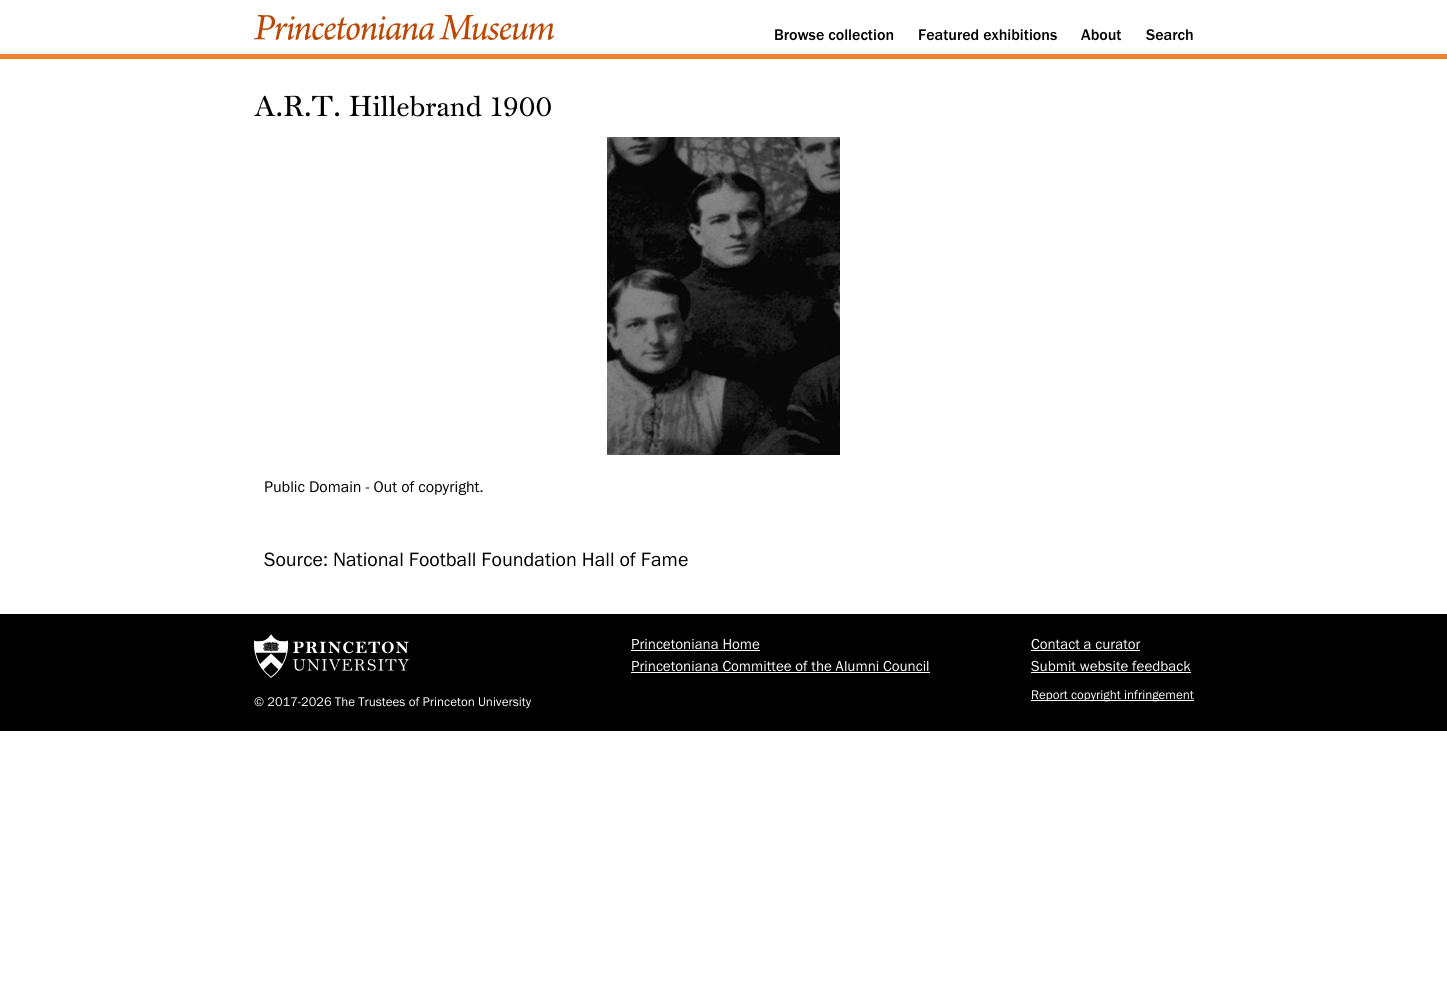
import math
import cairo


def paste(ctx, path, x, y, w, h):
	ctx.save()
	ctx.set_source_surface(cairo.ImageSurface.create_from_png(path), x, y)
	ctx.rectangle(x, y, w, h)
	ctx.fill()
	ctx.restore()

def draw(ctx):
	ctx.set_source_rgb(1, 1, 1)
	ctx.paint()
	paste(ctx, 'media/1.png', 254, 15, 300, 25)
	ctx.select_font_face('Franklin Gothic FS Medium')
	ctx.set_font_size(16)
	ctx.set_source_rgb(0, 0, 0)
	for x, y, s in [
		(774, 40, 'Browse collection'),
		(918, 40, 'Featured exhibitions'),
		(1081, 40, 'About'),
		(1146, 40, 'Search'),
	]:
		ctx.move_to(x, y)
		ctx.show_text(s)
	ctx.set_source_rgb(0.933, 0.498, 0.176)
	ctx.rectangle(0, 54, 1447, 5)
	ctx.fill()
	ctx.select_font_face('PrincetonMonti')
	ctx.set_font_size(28)
	ctx.set_source_rgb(0, 0, 0)
	ctx.move_to(254, 116)
	ctx.show_text('A.R.T. Hillebrand 1900')
	paste(ctx, 'media/2.png', 607, 137, 233, 318)
	ctx.select_font_face('Franklin Gothic FS')
	ctx.set_font_size(16)
	ctx.move_to(264, 492)
	ctx.show_text('Public Domain - Out of copyright.')
	ctx.set_font_size(20)
	ctx.move_to(264, 566)
	ctx.show_text('Source: National Football Foundation Hall of Fame')
	ctx.rectangle(0, 614, 1447, 117)
	ctx.fill()
	ctx.set_font_size(15)
	ctx.set_source_rgb(1, 1, 1)
	ctx.move_to(631, 649)
	ctx.show_text('Princetoniana Home')
	ctx.rectangle(631, 650, 129, 1)
	ctx.fill()
	ctx.move_to(631, 671)
	ctx.show_text('Princetoniana Committee of the Alumni Council')
	ctx.rectangle(631, 672, 299, 1)
	ctx.fill()
	ctx.move_to(1031, 649)
	ctx.show_text('Contact a curator')
	ctx.rectangle(1031, 650, 109, 1)
	ctx.fill()
	ctx.move_to(1031, 671)
	ctx.show_text('Submit website feedback')
	ctx.rectangle(1031, 672, 160, 1)
	ctx.fill()
	ctx.rectangle(1031, 700, 163, 1)
	ctx.fill()
	ctx.set_font_size(13)
	ctx.move_to(1031, 699)
	ctx.show_text('Report copyright infringement')
	paste(ctx, 'media/3.png', 254, 634, 155, 44)
	ctx.move_to(254, 706)
	ctx.show_text('© 2017-2026 The Trustees of Princeton University')


surface = cairo.ImageSurface(cairo.FORMAT_RGB24, 1447, 1004)
ctx = cairo.Context(surface)
options = cairo.FontOptions()
options.set_hint_metrics(cairo.HINT_METRICS_OFF)
options.set_hint_style(cairo.HINT_STYLE_NONE)
ctx.set_font_options(options)
ctx.set_miter_limit(4)
draw(ctx)
surface.write_to_png('image.png')
